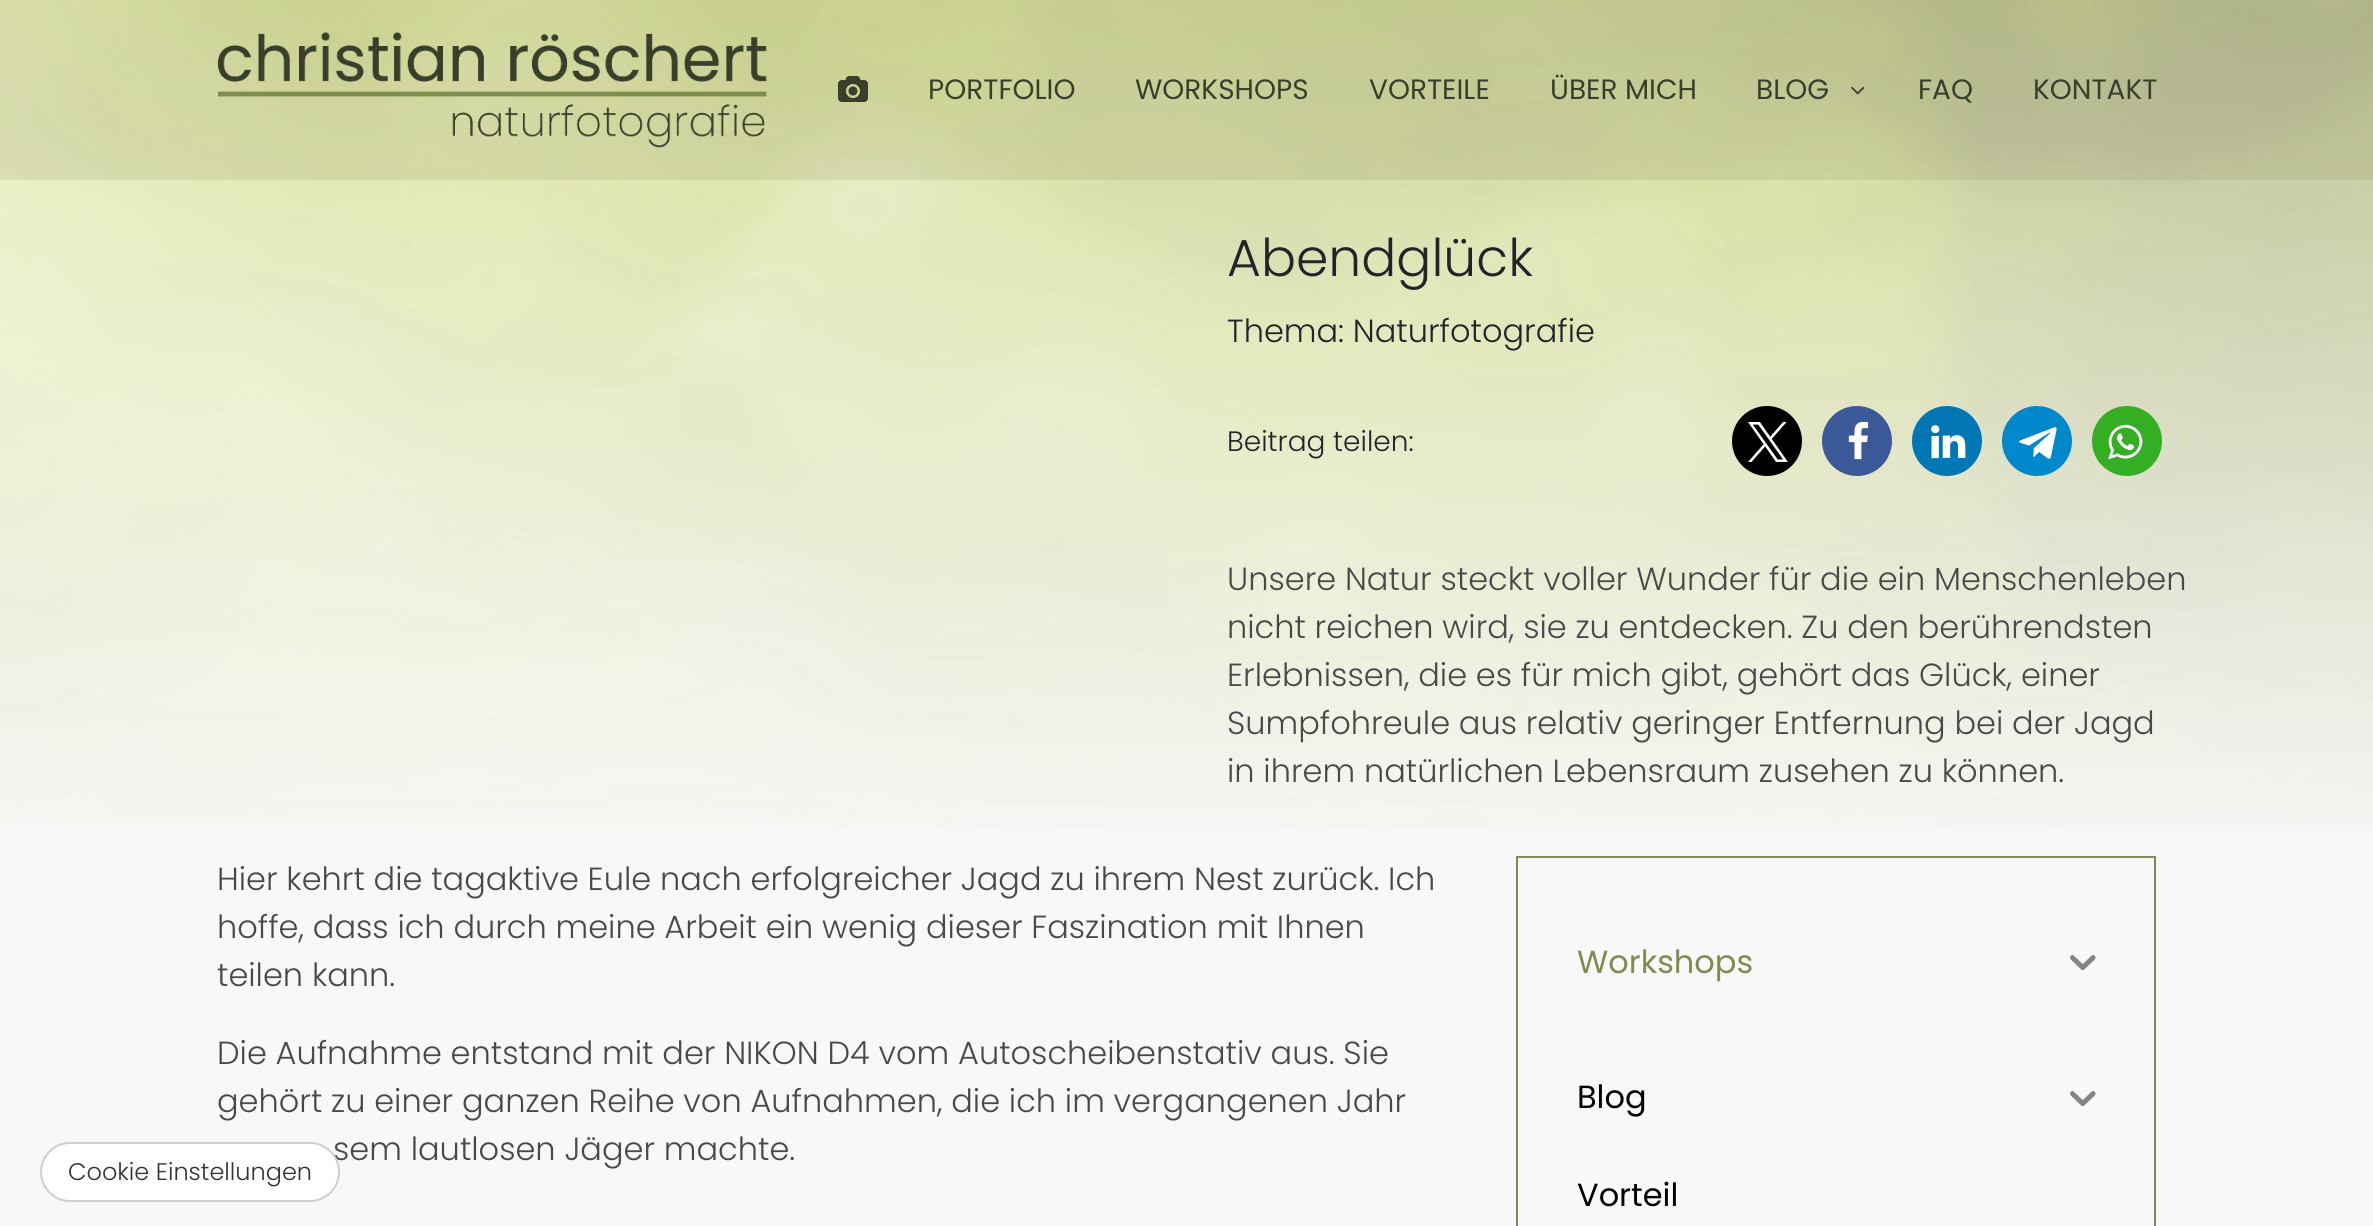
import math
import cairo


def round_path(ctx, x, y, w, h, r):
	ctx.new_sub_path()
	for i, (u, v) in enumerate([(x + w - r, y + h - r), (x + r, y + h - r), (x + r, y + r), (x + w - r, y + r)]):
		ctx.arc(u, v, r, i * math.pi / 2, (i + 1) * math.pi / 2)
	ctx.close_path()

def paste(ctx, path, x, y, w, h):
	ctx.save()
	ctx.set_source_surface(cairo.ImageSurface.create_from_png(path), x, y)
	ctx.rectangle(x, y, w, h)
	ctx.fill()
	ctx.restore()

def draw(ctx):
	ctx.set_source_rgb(0.969, 0.969, 0.969)
	ctx.paint()
	paste(ctx, 'media/1.png', 0, 0, 2373, 829)
	ctx.set_source_rgba(0.643, 0.651, 0.463, 0.25)
	ctx.rectangle(0, 0, 2373, 180)
	ctx.fill()
	paste(ctx, 'media/2.png', 218, 32, 549, 116)
	paste(ctx, 'media/3.png', 838, 76, 30, 26)
	ctx.select_font_face('Poppins')
	ctx.set_font_size(28)
	ctx.set_source_rgb(0.22, 0.251, 0.173)
	for x, y, s in [
		(928, 99, 'PORTFOLIO'),
		(1135, 99, 'WORKSHOPS'),
		(1369, 99, 'VORTEILE'),
		(1550, 99, 'ÜBER MICH'),
		(1756, 99, 'BLOG'),
	]:
		ctx.move_to(x, y)
		ctx.show_text(s)
	paste(ctx, 'media/4.png', 1851, 86, 14, 9)
	ctx.move_to(1918, 99)
	ctx.show_text('FAQ')
	ctx.move_to(2033, 99)
	ctx.show_text('KONTAKT')
	ctx.select_font_face('Poppins Light')
	ctx.set_font_size(32)
	ctx.set_source_rgb(0.286, 0.286, 0.286)
	ctx.move_to(333, 1160)
	ctx.show_text('sem lautlosen Jäger machte.')
	ctx.set_source_rgb(1, 1, 1)
	round_path(ctx, 41, 1143, 298, 58, 29)
	ctx.fill_preserve()
	ctx.set_source_rgb(0.808, 0.808, 0.808)
	ctx.stroke()
	ctx.set_font_size(24)
	ctx.set_source_rgb(0.2, 0.2, 0.2)
	ctx.move_to(68, 1180)
	ctx.show_text('Cookie Einstellungen')
	ctx.set_font_size(52)
	ctx.set_source_rgb(0.129, 0.145, 0.161)
	ctx.move_to(1227, 276)
	ctx.show_text('Abendglück')
	ctx.set_font_size(32)
	ctx.move_to(1227, 342)
	ctx.show_text('Thema: Naturfotografie')
	ctx.set_font_size(28)
	ctx.move_to(1227, 451)
	ctx.show_text('Beitrag teilen:')
	ctx.set_source_rgb(0, 0, 0)
	ctx.new_path()
	ctx.arc(1767, 441, 35, 0, 2 * math.pi)
	ctx.fill()
	paste(ctx, 'media/5.png', 1748, 422, 40, 40)
	ctx.set_source_rgb(0.231, 0.349, 0.596)
	ctx.arc(1857, 441, 35, 0, 2 * math.pi)
	ctx.fill()
	paste(ctx, 'media/6.png', 1848, 421, 21, 39)
	ctx.set_source_rgb(0, 0.467, 0.71)
	ctx.arc(1947, 441, 35, 0, 2 * math.pi)
	ctx.fill()
	paste(ctx, 'media/7.png', 1931, 425, 35, 34)
	ctx.set_source_rgb(0, 0.533, 0.8)
	ctx.arc(2037, 441, 35, 0, 2 * math.pi)
	ctx.fill()
	paste(ctx, 'media/8.png', 2019, 427, 38, 32)
	ctx.set_source_rgb(0.204, 0.686, 0.137)
	ctx.arc(2127, 441, 35, 0, 2 * math.pi)
	ctx.fill()
	paste(ctx, 'media/9.png', 2108, 424, 35, 36)
	ctx.set_font_size(32)
	ctx.set_source_rgb(0.286, 0.286, 0.286)
	for x, y, s in [
		(1227, 590, 'Unsere Natur steckt voller Wunder für die ein Menschenleben'),
		(1227, 638, 'nicht reichen wird, sie zu entdecken. Zu den berührendsten'),
		(1227, 686, 'Erlebnissen, die es für mich gibt, gehört das Glück, einer'),
		(1227, 734, 'Sumpfohreule aus relativ geringer Entfernung bei der Jagd'),
		(1227, 782, 'in ihrem natürlichen Lebensraum zusehen zu können.'),
		(217, 890, 'Hier kehrt die tagaktive Eule nach erfolgreicher Jagd zu ihrem Nest zurück. Ich'),
		(217, 938, 'hoffe, dass ich durch meine Arbeit ein wenig dieser Faszination mit Ihnen'),
		(217, 986, 'teilen kann.'),
		(217, 1064, 'Die Aufnahme entstand mit der NIKON D4 vom Autoscheibenstativ aus. Sie'),
		(217, 1112, 'gehört zu einer ganzen Reihe von Aufnahmen, die ich im vergangenen Jahr'),
	]:
		ctx.move_to(x, y)
		ctx.show_text(s)
	ctx.rectangle(1517, 857, 638, 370)
	ctx.set_source_rgb(0.498, 0.549, 0.31)
	ctx.stroke()
	ctx.select_font_face('Poppins')
	ctx.move_to(1577, 973)
	ctx.show_text('Workshops')
	paste(ctx, 'media/10.png', 2070, 955, 26, 15)
	ctx.set_source_rgb(0, 0, 0)
	ctx.move_to(1577, 1108)
	ctx.show_text('Blog')
	paste(ctx, 'media/10.png', 2070, 1091, 26, 15)
	ctx.move_to(1577, 1206)
	ctx.show_text('Vorteil')


surface = cairo.ImageSurface(cairo.FORMAT_RGB24, 2373, 1226)
ctx = cairo.Context(surface)
options = cairo.FontOptions()
options.set_hint_metrics(cairo.HINT_METRICS_OFF)
options.set_hint_style(cairo.HINT_STYLE_NONE)
ctx.set_font_options(options)
ctx.set_miter_limit(4)
draw(ctx)
surface.write_to_png('image.png')
